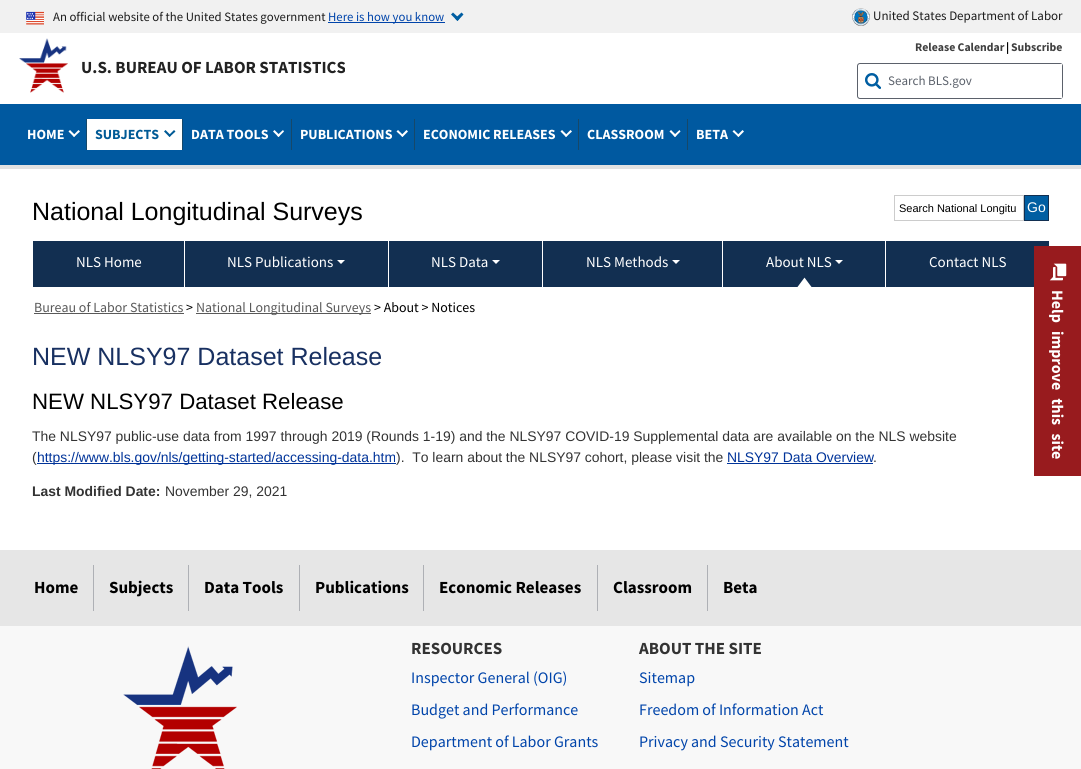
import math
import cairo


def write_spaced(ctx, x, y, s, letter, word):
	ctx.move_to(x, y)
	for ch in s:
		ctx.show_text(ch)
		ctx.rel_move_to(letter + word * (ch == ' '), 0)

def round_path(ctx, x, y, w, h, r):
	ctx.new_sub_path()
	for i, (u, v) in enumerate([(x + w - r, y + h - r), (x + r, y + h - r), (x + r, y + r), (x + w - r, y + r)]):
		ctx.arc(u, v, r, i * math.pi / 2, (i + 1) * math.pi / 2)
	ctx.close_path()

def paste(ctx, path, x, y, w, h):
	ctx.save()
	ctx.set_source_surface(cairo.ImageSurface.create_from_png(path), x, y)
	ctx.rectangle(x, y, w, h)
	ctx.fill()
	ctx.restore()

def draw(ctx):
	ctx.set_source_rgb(1, 1, 1)
	ctx.paint()
	ctx.set_source_rgb(0.945, 0.945, 0.945)
	ctx.rectangle(0, 0, 1081, 33)
	ctx.fill()
	paste(ctx, 'media/1.png', 26, 11, 18, 14)
	ctx.select_font_face('Source Sans Pro')
	ctx.set_font_size(12.75)
	ctx.set_source_rgb(0.106, 0.106, 0.106)
	ctx.move_to(53, 21)
	ctx.show_text('An official website of the United States government')
	ctx.set_source_rgb(0, 0.267, 0.667)
	ctx.rectangle(328, 22, 117, 1)
	ctx.fill()
	ctx.move_to(328, 21)
	ctx.show_text('Here is how you know')
	ctx.set_source_rgb(0, 0.369, 0.635)
	ctx.new_path()
	ctx.move_to(461.5, 12.5)
	ctx.line_to(463.5, 14.5)
	ctx.line_to(457.5, 21)
	ctx.line_to(455, 18.5)
	ctx.close_path()
	ctx.fill()
	ctx.new_path()
	ctx.move_to(453, 12.5)
	ctx.line_to(459.5, 18.5)
	ctx.line_to(457.5, 21)
	ctx.line_to(451, 14.5)
	ctx.close_path()
	ctx.fill()
	paste(ctx, 'media/2.png', 852, 8, 18, 18)
	ctx.set_font_size(13)
	ctx.set_source_rgb(0.106, 0.106, 0.106)
	ctx.move_to(873, 20)
	ctx.show_text('United States Department of Labor')
	paste(ctx, 'media/3.png', 19, 38, 49, 55)
	ctx.select_font_face('Source Sans Pro', cairo.FONT_SLANT_NORMAL, cairo.FONT_WEIGHT_BOLD)
	ctx.set_font_size(17)
	ctx.set_source_rgb(0.133, 0.133, 0.133)
	ctx.move_to(81, 73)
	ctx.show_text('U.S. BUREAU OF LABOR STATISTICS')
	ctx.set_font_size(11.75)
	ctx.set_source_rgb(0.251, 0.251, 0.251)
	ctx.move_to(915, 51)
	ctx.show_text('Release Calendar')
	ctx.set_source_rgb(0, 0, 0)
	ctx.move_to(1006, 51)
	ctx.show_text('|')
	ctx.set_source_rgb(0.251, 0.251, 0.251)
	ctx.move_to(1011, 51)
	ctx.show_text('Subscribe')
	round_path(ctx, 857.5, 63.5, 205, 35, 2.5)
	ctx.set_source_rgb(0.357, 0.38, 0.42)
	ctx.set_line_width(1)
	ctx.stroke()
	paste(ctx, 'media/4.png', 865, 73, 16, 16)
	ctx.set_source_rgb(1, 1, 1)
	ctx.rectangle(1060, 64, 2, 34)
	ctx.fill()
	ctx.select_font_face('Source Sans Pro')
	ctx.set_font_size(13)
	ctx.set_source_rgb(0.357, 0.38, 0.42)
	ctx.move_to(888, 85)
	ctx.show_text('Search BLS.gov')
	ctx.set_source_rgb(0, 0.349, 0.627)
	ctx.rectangle(0, 104, 1081, 61)
	ctx.fill()
	ctx.set_source_rgb(0.886, 0.886, 0.886)
	ctx.rectangle(0, 165, 1081, 4)
	ctx.fill()
	ctx.set_source_rgb(0.086, 0.282, 0.412)
	ctx.rectangle(86, 119, 1, 31)
	ctx.fill()
	ctx.select_font_face('Source Sans Pro', cairo.FONT_SLANT_NORMAL, cairo.FONT_WEIGHT_BOLD)
	ctx.set_font_size(14)
	ctx.set_source_rgb(1, 1, 1)
	ctx.move_to(27, 139)
	ctx.show_text('HOME')
	ctx.new_path()
	ctx.move_to(78.5, 130)
	ctx.line_to(80, 131.5)
	ctx.line_to(74, 137)
	ctx.line_to(73, 135.5)
	ctx.close_path()
	ctx.fill()
	ctx.new_path()
	ctx.move_to(70, 130)
	ctx.line_to(75.5, 135.5)
	ctx.line_to(74, 137)
	ctx.line_to(68.5, 131.5)
	ctx.close_path()
	ctx.fill()
	ctx.rectangle(87, 119, 95, 31)
	ctx.fill()
	ctx.set_source_rgb(0.086, 0.282, 0.412)
	ctx.rectangle(182, 119, 1, 31)
	ctx.fill()
	ctx.set_source_rgb(0, 0.353, 0.588)
	ctx.move_to(95, 139)
	ctx.show_text('SUBJECTS')
	ctx.new_path()
	ctx.move_to(174, 130)
	ctx.line_to(175.5, 131.5)
	ctx.line_to(169.5, 137)
	ctx.line_to(168.5, 135.5)
	ctx.close_path()
	ctx.fill()
	ctx.new_path()
	ctx.move_to(165.5, 130)
	ctx.line_to(171, 135.5)
	ctx.line_to(169.5, 137)
	ctx.line_to(164, 131.5)
	ctx.close_path()
	ctx.fill()
	ctx.set_source_rgb(0.086, 0.282, 0.412)
	ctx.rectangle(291, 119, 1, 31)
	ctx.fill()
	ctx.set_source_rgb(1, 1, 1)
	ctx.move_to(191, 139)
	ctx.show_text('DATA TOOLS')
	ctx.new_path()
	ctx.move_to(283, 130)
	ctx.line_to(284, 131.5)
	ctx.line_to(278.5, 137)
	ctx.line_to(277, 135.5)
	ctx.close_path()
	ctx.fill()
	ctx.new_path()
	ctx.move_to(274.5, 130)
	ctx.line_to(280, 135.5)
	ctx.line_to(278.5, 137)
	ctx.line_to(273, 131.5)
	ctx.close_path()
	ctx.fill()
	ctx.set_source_rgb(0.086, 0.282, 0.412)
	ctx.rectangle(414, 119, 1, 31)
	ctx.fill()
	ctx.set_source_rgb(1, 1, 1)
	ctx.move_to(300, 139)
	ctx.show_text('PUBLICATIONS')
	ctx.new_path()
	ctx.move_to(406.5, 130)
	ctx.line_to(408, 131.5)
	ctx.line_to(402.5, 137)
	ctx.line_to(401, 135.5)
	ctx.close_path()
	ctx.fill()
	ctx.new_path()
	ctx.move_to(398, 130)
	ctx.line_to(403.5, 135.5)
	ctx.line_to(402.5, 137)
	ctx.line_to(396.5, 131.5)
	ctx.close_path()
	ctx.fill()
	ctx.set_source_rgb(0.086, 0.282, 0.412)
	ctx.rectangle(578, 119, 1, 31)
	ctx.fill()
	ctx.set_source_rgb(1, 1, 1)
	ctx.move_to(423, 139)
	ctx.show_text('ECONOMIC RELEASES')
	ctx.new_path()
	ctx.move_to(570.5, 130)
	ctx.line_to(572, 131.5)
	ctx.line_to(566, 137)
	ctx.line_to(565, 135.5)
	ctx.close_path()
	ctx.fill()
	ctx.new_path()
	ctx.move_to(562, 130)
	ctx.line_to(567.5, 135.5)
	ctx.line_to(566, 137)
	ctx.line_to(560.5, 131.5)
	ctx.close_path()
	ctx.fill()
	ctx.set_source_rgb(0.086, 0.282, 0.412)
	ctx.rectangle(687, 119, 1, 31)
	ctx.fill()
	ctx.set_source_rgb(1, 1, 1)
	ctx.move_to(587, 139)
	ctx.show_text('CLASSROOM')
	ctx.new_path()
	ctx.move_to(679.5, 130)
	ctx.line_to(680.5, 131.5)
	ctx.line_to(675, 137)
	ctx.line_to(673.5, 135.5)
	ctx.close_path()
	ctx.fill()
	ctx.new_path()
	ctx.move_to(671, 130)
	ctx.line_to(676.5, 135.5)
	ctx.line_to(675, 137)
	ctx.line_to(669.5, 131.5)
	ctx.close_path()
	ctx.fill()
	ctx.move_to(696, 139)
	ctx.show_text('BETA')
	ctx.new_path()
	ctx.move_to(742.5, 130)
	ctx.line_to(744, 131.5)
	ctx.line_to(738.5, 137)
	ctx.line_to(737, 135.5)
	ctx.close_path()
	ctx.fill()
	ctx.new_path()
	ctx.move_to(734, 130)
	ctx.line_to(739.5, 135.5)
	ctx.line_to(738.5, 137)
	ctx.line_to(732.5, 131.5)
	ctx.close_path()
	ctx.fill()
	ctx.select_font_face('Liberation Sans')
	ctx.set_font_size(25)
	ctx.set_source_rgb(0, 0, 0)
	ctx.move_to(32, 220)
	ctx.show_text('National Longitudinal Surveys')
	ctx.rectangle(894.5, 195.5, 129, 25)
	ctx.set_source_rgb(0.8, 0.8, 0.8)
	ctx.stroke()
	ctx.set_font_size(11)
	ctx.set_source_rgb(0, 0, 0)
	ctx.move_to(899, 212)
	ctx.show_text('Search National Longitu')
	ctx.set_source_rgb(0, 0.369, 0.635)
	ctx.rectangle(1024.5, 195.5, 24, 25)
	ctx.fill_preserve()
	ctx.set_source_rgb(0.071, 0.184, 0.318)
	ctx.stroke()
	ctx.set_font_size(14)
	ctx.set_source_rgb(1, 1, 1)
	ctx.move_to(1027, 212)
	ctx.show_text('Go')
	ctx.set_source_rgb(0.071, 0.184, 0.318)
	ctx.rectangle(33, 241, 151, 46)
	ctx.fill()
	ctx.select_font_face('Source Sans Pro')
	ctx.set_font_size(15)
	ctx.set_source_rgb(1, 1, 1)
	ctx.move_to(76, 267)
	ctx.show_text('NLS Home')
	ctx.set_source_rgb(0.071, 0.184, 0.318)
	ctx.rectangle(185, 241, 203, 46)
	ctx.fill()
	ctx.set_source_rgb(1, 1, 1)
	ctx.move_to(227, 267)
	ctx.show_text('NLS Publications')
	ctx.new_path()
	ctx.move_to(337, 260)
	ctx.line_to(345, 260)
	ctx.line_to(341, 264)
	ctx.close_path()
	ctx.fill()
	ctx.set_source_rgb(0.071, 0.184, 0.318)
	ctx.rectangle(389, 241, 153, 46)
	ctx.fill()
	ctx.set_source_rgb(1, 1, 1)
	ctx.move_to(431, 267)
	ctx.show_text('NLS Data')
	ctx.new_path()
	ctx.move_to(492, 260)
	ctx.line_to(500, 260)
	ctx.line_to(496, 264)
	ctx.close_path()
	ctx.fill()
	ctx.set_source_rgb(0.071, 0.184, 0.318)
	ctx.rectangle(543, 241, 179, 46)
	ctx.fill()
	ctx.set_source_rgb(1, 1, 1)
	ctx.move_to(586, 267)
	ctx.show_text('NLS Methods')
	ctx.new_path()
	ctx.move_to(672, 260)
	ctx.line_to(680, 260)
	ctx.line_to(676, 264)
	ctx.close_path()
	ctx.fill()
	ctx.set_source_rgb(0.071, 0.184, 0.318)
	ctx.rectangle(723, 241, 162, 46)
	ctx.fill()
	paste(ctx, 'media/5.png', 797, 277, 15, 10)
	ctx.set_source_rgb(1, 1, 1)
	ctx.move_to(766, 267)
	ctx.show_text('About NLS')
	ctx.new_path()
	ctx.move_to(835, 260)
	ctx.line_to(843, 260)
	ctx.line_to(839, 264)
	ctx.close_path()
	ctx.fill()
	ctx.set_source_rgb(0.071, 0.184, 0.318)
	ctx.rectangle(886, 241, 163, 46)
	ctx.fill()
	ctx.set_source_rgb(1, 1, 1)
	ctx.move_to(929, 267)
	ctx.show_text('Contact NLS')
	ctx.set_font_size(13.92)
	ctx.set_source_rgb(0.349, 0.349, 0.349)
	ctx.move_to(34, 312)
	ctx.show_text('Bureau of Labor Statistics')
	ctx.rectangle(34, 313, 150, 1)
	ctx.fill()
	ctx.set_source_rgb(0, 0, 0)
	ctx.move_to(186, 312)
	ctx.show_text('>')
	ctx.set_source_rgb(0.349, 0.349, 0.349)
	ctx.rectangle(196, 313, 175, 1)
	ctx.fill()
	ctx.move_to(196, 312)
	ctx.show_text('National Longitudinal Surveys')
	ctx.set_source_rgb(0, 0, 0)
	ctx.move_to(374, 312)
	ctx.show_text('> About > Notices')
	ctx.select_font_face('Liberation Sans')
	ctx.set_font_size(25)
	ctx.set_source_rgb(0.094, 0.188, 0.38)
	ctx.move_to(32, 365)
	ctx.show_text('NEW NLSY97 Dataset Release')
	ctx.set_font_size(22.25)
	ctx.set_source_rgb(0, 0, 0)
	ctx.move_to(32, 409)
	ctx.show_text('NEW NLSY97 Dataset Release')
	ctx.set_font_size(13.92)
	ctx.set_source_rgb(0.2, 0.2, 0.2)
	ctx.move_to(32, 441)
	ctx.show_text('The NLSY97 public-use data from 1997 through 2019 (Rounds 1-19) and the NLSY97 COVID-19 Supplemental data are available on the NLS website')
	ctx.move_to(32, 462)
	ctx.show_text('(')
	ctx.set_source_rgb(0, 0.2, 0.6)
	ctx.rectangle(37, 463, 359, 1)
	ctx.fill()
	ctx.move_to(37, 462)
	ctx.show_text('https://www.bls.gov/nls/getting-started/accessing-data.htm')
	ctx.set_source_rgb(0.2, 0.2, 0.2)
	ctx.move_to(396, 462)
	ctx.show_text(').  To learn about the NLSY97 cohort, please visit the')
	ctx.set_source_rgb(0, 0.2, 0.6)
	ctx.move_to(727, 462)
	ctx.show_text('NLSY97 Data Overview')
	ctx.rectangle(727, 463, 146, 1)
	ctx.fill()
	ctx.set_source_rgb(0.2, 0.2, 0.2)
	ctx.move_to(873, 462)
	ctx.show_text('.')
	ctx.select_font_face('Liberation Sans', cairo.FONT_SLANT_NORMAL, cairo.FONT_WEIGHT_BOLD)
	ctx.move_to(32, 496)
	ctx.show_text('Last Modified Date:')
	ctx.select_font_face('Liberation Sans')
	ctx.move_to(165, 496)
	ctx.show_text('November 29, 2021')
	ctx.set_source_rgb(0.596, 0.106, 0.118)
	ctx.rectangle(1034, 246, 47, 230)
	ctx.fill()
	paste(ctx, 'media/6.png', 1049, 263, 18, 18)
	ctx.select_font_face('Source Sans Pro', cairo.FONT_SLANT_NORMAL, cairo.FONT_WEIGHT_BOLD)
	ctx.set_font_size(16)
	ctx.set_source_rgb(1, 1, 1)
	ctx.save()
	ctx.translate(1052, 290)
	ctx.rotate(90 * math.pi / 180)
	write_spaced(ctx, 0, 0, 'Help improve this site', 0, 5)
	ctx.restore()
	ctx.set_source_rgb(0.902, 0.902, 0.902)
	ctx.rectangle(0, 550, 1081, 76)
	ctx.fill()
	ctx.set_font_size(17)
	ctx.set_source_rgb(0, 0, 0)
	ctx.move_to(34, 593)
	ctx.show_text('Home')
	ctx.set_source_rgb(0.682, 0.69, 0.71)
	ctx.rectangle(93, 565, 1, 46)
	ctx.fill()
	ctx.set_source_rgb(0, 0, 0)
	ctx.move_to(109, 593)
	ctx.show_text('Subjects')
	ctx.set_source_rgb(0.682, 0.69, 0.71)
	ctx.rectangle(188, 565, 1, 46)
	ctx.fill()
	ctx.set_source_rgb(0, 0, 0)
	ctx.move_to(204, 593)
	ctx.show_text('Data Tools')
	ctx.set_source_rgb(0.682, 0.69, 0.71)
	ctx.rectangle(299, 565, 1, 46)
	ctx.fill()
	ctx.set_source_rgb(0, 0, 0)
	ctx.move_to(315, 593)
	ctx.show_text('Publications')
	ctx.set_source_rgb(0.682, 0.69, 0.71)
	ctx.rectangle(423, 565, 1, 46)
	ctx.fill()
	ctx.set_source_rgb(0, 0, 0)
	ctx.move_to(439, 593)
	ctx.show_text('Economic Releases')
	ctx.set_source_rgb(0.682, 0.69, 0.71)
	ctx.rectangle(597, 565, 1, 46)
	ctx.fill()
	ctx.set_source_rgb(0, 0, 0)
	ctx.move_to(613, 593)
	ctx.show_text('Classroom')
	ctx.set_source_rgb(0.682, 0.69, 0.71)
	ctx.rectangle(707, 565, 1, 46)
	ctx.fill()
	ctx.set_source_rgb(0, 0, 0)
	ctx.move_to(723, 593)
	ctx.show_text('Beta')
	ctx.set_source_rgb(0.969, 0.969, 0.969)
	ctx.rectangle(0, 626, 1081, 143)
	ctx.fill()
	paste(ctx, 'media/7.png', 123, 646, 114, 123)
	ctx.set_source_rgb(0.2, 0.2, 0.2)
	ctx.move_to(411, 654)
	ctx.show_text('RESOURCES')
	ctx.select_font_face('Source Sans Pro')
	ctx.set_font_size(16)
	ctx.set_source_rgb(0, 0.267, 0.667)
	for x, y, s in [
		(411, 683, 'Inspector General (OIG)'),
		(411, 715, 'Budget and Performance'),
		(411, 747, 'Department of Labor Grants'),
	]:
		ctx.move_to(x, y)
		ctx.show_text(s)
	ctx.select_font_face('Source Sans Pro', cairo.FONT_SLANT_NORMAL, cairo.FONT_WEIGHT_BOLD)
	ctx.set_font_size(17)
	ctx.set_source_rgb(0.2, 0.2, 0.2)
	ctx.move_to(639, 654)
	ctx.show_text('ABOUT THE SITE')
	ctx.select_font_face('Source Sans Pro')
	ctx.set_font_size(16)
	ctx.set_source_rgb(0, 0.267, 0.667)
	for x, y, s in [
		(639, 683, 'Sitemap'),
		(639, 715, 'Freedom of Information Act'),
		(639, 747, 'Privacy and Security Statement'),
	]:
		ctx.move_to(x, y)
		ctx.show_text(s)


surface = cairo.ImageSurface(cairo.FORMAT_RGB24, 1081, 769)
ctx = cairo.Context(surface)
options = cairo.FontOptions()
options.set_hint_metrics(cairo.HINT_METRICS_OFF)
options.set_hint_style(cairo.HINT_STYLE_NONE)
ctx.set_font_options(options)
ctx.set_miter_limit(4)
draw(ctx)
surface.write_to_png('image.png')
